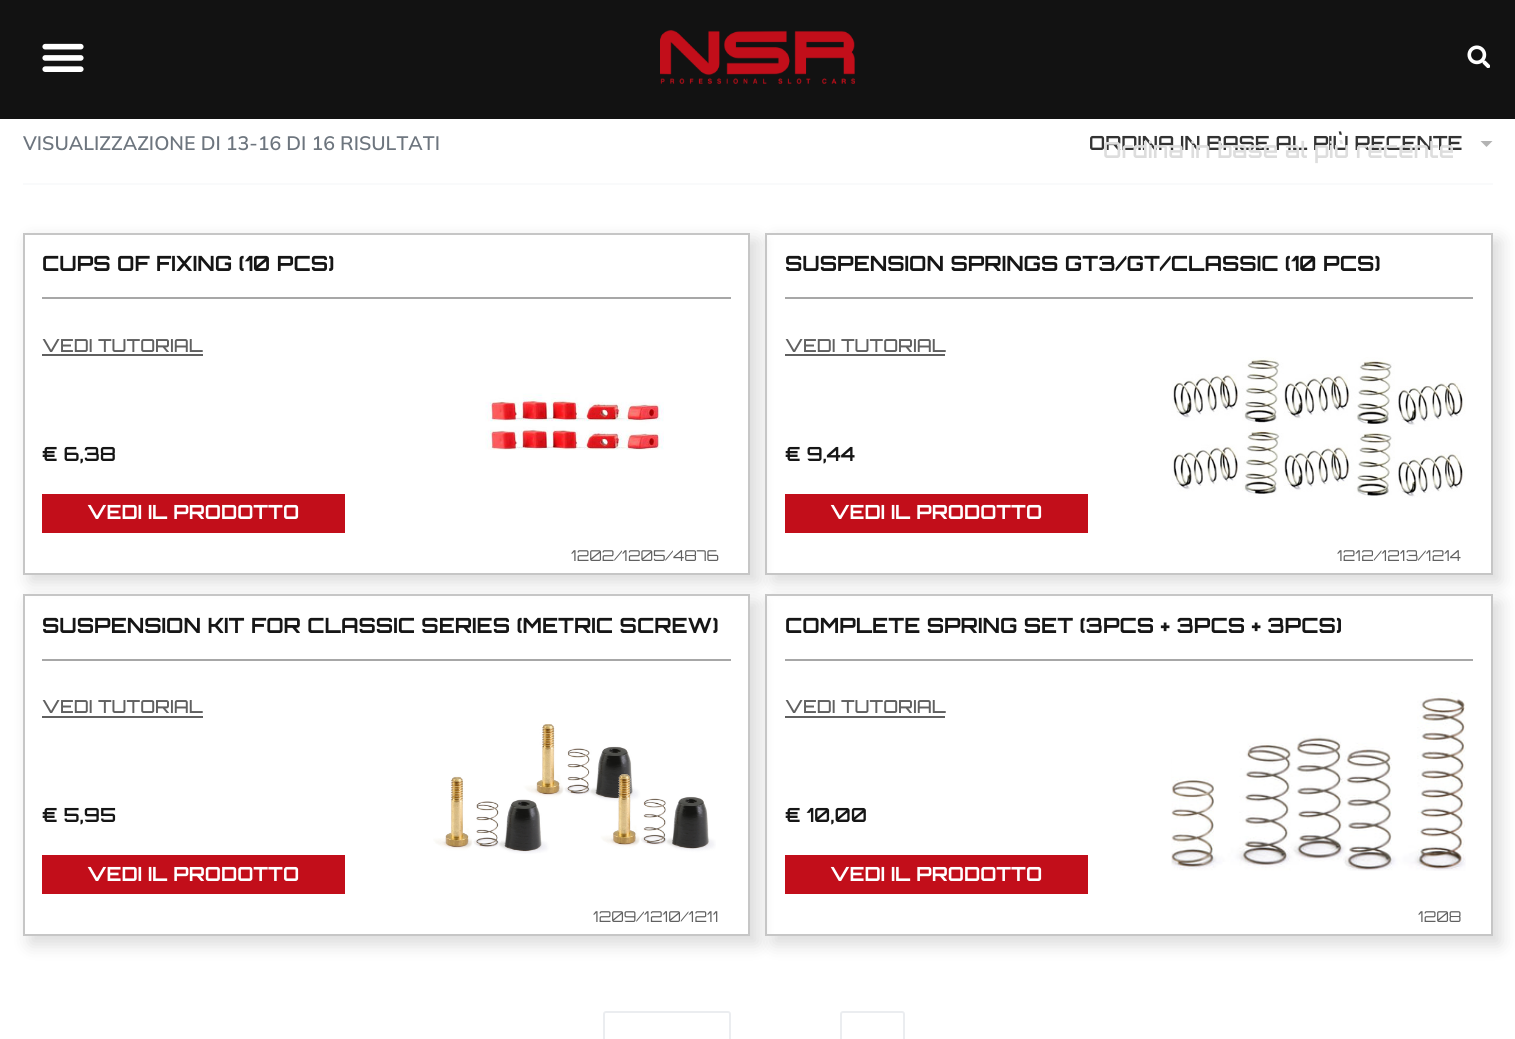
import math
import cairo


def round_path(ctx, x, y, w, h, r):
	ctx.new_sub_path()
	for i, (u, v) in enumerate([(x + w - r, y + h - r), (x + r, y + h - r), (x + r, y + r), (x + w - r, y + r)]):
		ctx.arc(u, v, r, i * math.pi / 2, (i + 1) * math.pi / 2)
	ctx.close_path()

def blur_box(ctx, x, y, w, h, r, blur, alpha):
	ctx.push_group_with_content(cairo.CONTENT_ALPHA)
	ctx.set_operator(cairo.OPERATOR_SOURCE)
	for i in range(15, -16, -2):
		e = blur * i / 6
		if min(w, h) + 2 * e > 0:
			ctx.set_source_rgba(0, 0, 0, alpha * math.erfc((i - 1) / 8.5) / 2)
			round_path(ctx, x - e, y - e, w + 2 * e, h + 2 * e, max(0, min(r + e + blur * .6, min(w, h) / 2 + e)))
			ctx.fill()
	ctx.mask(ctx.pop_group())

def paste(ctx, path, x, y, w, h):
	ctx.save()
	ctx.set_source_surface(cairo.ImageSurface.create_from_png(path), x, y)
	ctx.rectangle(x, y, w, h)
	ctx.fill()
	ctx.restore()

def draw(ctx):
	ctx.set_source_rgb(1, 1, 1)
	ctx.paint()
	ctx.set_source_rgb(0.071, 0.071, 0.071)
	ctx.rectangle(0, 0, 1515, 119)
	ctx.fill()
	paste(ctx, 'media/1.png', 42, 43, 42, 29)
	paste(ctx, 'media/2.png', 660, 30, 195, 54)
	paste(ctx, 'media/3.png', 1467, 45, 23, 23)
	ctx.set_source_rgb(0.976, 0.98, 0.984)
	ctx.rectangle(23, 183, 1470, 2)
	ctx.fill()
	ctx.select_font_face('Mulish SemiBold')
	ctx.set_font_size(19.5)
	ctx.set_source_rgb(0.427, 0.459, 0.494)
	ctx.move_to(23, 150)
	ctx.show_text('VISUALIZZAZIONE DI 13-16 DI 16 RISULTATI')
	ctx.select_font_face('Orbitron SemiBold')
	ctx.set_source_rgb(0.2, 0.2, 0.2)
	ctx.move_to(1089, 150)
	ctx.show_text('ORDINA IN BASE AL PIÙ RECENTE')
	ctx.set_source_rgb(0.702, 0.702, 0.702)
	ctx.new_path()
	ctx.move_to(1480.5, 141)
	ctx.line_to(1492.5, 141)
	ctx.line_to(1486.5, 147)
	ctx.close_path()
	ctx.fill()
	ctx.set_font_size(22.25)
	ctx.set_source_rgb(0.867, 0.867, 0.867)
	ctx.move_to(1103, 158)
	ctx.show_text('Ordina in base al più recente')
	ctx.save()
	ctx.set_fill_rule(cairo.FILL_RULE_EVEN_ODD)
	ctx.new_path()
	ctx.move_to(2, 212)
	ctx.line_to(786, 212)
	ctx.line_to(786, 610)
	ctx.line_to(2, 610)
	ctx.close_path()
	ctx.move_to(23, 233)
	ctx.line_to(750, 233)
	ctx.line_to(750, 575)
	ctx.line_to(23, 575)
	ctx.close_path()
	ctx.clip()
	ctx.set_source_rgb(0, 0, 0)
	blur_box(ctx, 30, 240, 728, 342, 0, 9, 0.15)
	ctx.restore()
	ctx.rectangle(24, 234, 725, 340)
	ctx.set_source_rgb(0.776, 0.776, 0.776)
	ctx.stroke()
	ctx.select_font_face('Orbitron', cairo.FONT_SLANT_NORMAL, cairo.FONT_WEIGHT_BOLD)
	ctx.set_font_size(21)
	ctx.set_source_rgb(0.086, 0.086, 0.086)
	ctx.move_to(42, 271)
	ctx.show_text('CUPS OF FIXING (10 PCS)')
	ctx.set_source_rgb(0.655, 0.655, 0.655)
	ctx.rectangle(42, 297, 689, 2)
	ctx.fill()
	ctx.select_font_face('Orbitron Medium')
	ctx.set_font_size(18)
	ctx.set_source_rgb(0.376, 0.376, 0.376)
	ctx.move_to(42, 352)
	ctx.show_text('VEDI TUTORIAL')
	ctx.rectangle(42, 354, 161, 2)
	ctx.fill()
	ctx.select_font_face('Orbitron SemiBold')
	ctx.set_font_size(19.5)
	ctx.set_source_rgb(0.086, 0.086, 0.086)
	ctx.move_to(42, 461)
	ctx.show_text('€ 6,38')
	ctx.set_source_rgb(0.761, 0.055, 0.102)
	ctx.rectangle(42, 494, 303, 39)
	ctx.fill()
	ctx.select_font_face('Orbitron', cairo.FONT_SLANT_NORMAL, cairo.FONT_WEIGHT_BOLD)
	ctx.set_source_rgb(1, 1, 1)
	ctx.move_to(87, 519)
	ctx.show_text('VEDI IL PRODOTTO')
	paste(ctx, 'media/4.png', 485, 393, 179, 57)
	ctx.select_font_face('Orbitron')
	ctx.set_font_size(15)
	ctx.set_source_rgb(0.376, 0.376, 0.376)
	ctx.move_to(571, 561)
	ctx.show_text('1202/1205/4876')
	ctx.save()
	ctx.set_fill_rule(cairo.FILL_RULE_EVEN_ODD)
	ctx.new_path()
	ctx.move_to(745, 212)
	ctx.line_to(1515, 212)
	ctx.line_to(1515, 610)
	ctx.line_to(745, 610)
	ctx.close_path()
	ctx.move_to(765, 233)
	ctx.line_to(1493, 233)
	ctx.line_to(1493, 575)
	ctx.line_to(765, 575)
	ctx.close_path()
	ctx.clip()
	ctx.set_source_rgb(0, 0, 0)
	blur_box(ctx, 773, 240, 727, 342, 0, 9, 0.15)
	ctx.restore()
	ctx.rectangle(766, 234, 726, 340)
	ctx.set_source_rgb(0.776, 0.776, 0.776)
	ctx.stroke()
	ctx.select_font_face('Orbitron', cairo.FONT_SLANT_NORMAL, cairo.FONT_WEIGHT_BOLD)
	ctx.set_font_size(21)
	ctx.set_source_rgb(0.086, 0.086, 0.086)
	ctx.move_to(785, 271)
	ctx.show_text('SUSPENSION SPRINGS GT3/GT/CLASSIC (10 PCS)')
	ctx.set_source_rgb(0.655, 0.655, 0.655)
	ctx.rectangle(785, 297, 688, 2)
	ctx.fill()
	ctx.select_font_face('Orbitron Medium')
	ctx.set_font_size(18)
	ctx.set_source_rgb(0.376, 0.376, 0.376)
	ctx.move_to(785, 352)
	ctx.show_text('VEDI TUTORIAL')
	ctx.rectangle(785, 354, 160, 2)
	ctx.fill()
	ctx.select_font_face('Orbitron SemiBold')
	ctx.set_font_size(19.5)
	ctx.set_source_rgb(0.086, 0.086, 0.086)
	ctx.move_to(785, 461)
	ctx.show_text('€ 9,44')
	ctx.set_source_rgb(0.761, 0.055, 0.102)
	ctx.rectangle(785, 494, 303, 39)
	ctx.fill()
	ctx.select_font_face('Orbitron', cairo.FONT_SLANT_NORMAL, cairo.FONT_WEIGHT_BOLD)
	ctx.set_source_rgb(1, 1, 1)
	ctx.move_to(830, 519)
	ctx.show_text('VEDI IL PRODOTTO')
	paste(ctx, 'media/5.png', 1171, 357, 295, 141)
	ctx.select_font_face('Orbitron')
	ctx.set_font_size(15)
	ctx.set_source_rgb(0.376, 0.376, 0.376)
	ctx.move_to(1337, 561)
	ctx.show_text('1212/1213/1214')
	ctx.save()
	ctx.set_fill_rule(cairo.FILL_RULE_EVEN_ODD)
	ctx.new_path()
	ctx.move_to(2, 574)
	ctx.line_to(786, 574)
	ctx.line_to(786, 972)
	ctx.line_to(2, 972)
	ctx.close_path()
	ctx.move_to(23, 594)
	ctx.line_to(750, 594)
	ctx.line_to(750, 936)
	ctx.line_to(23, 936)
	ctx.close_path()
	ctx.clip()
	ctx.set_source_rgb(0, 0, 0)
	blur_box(ctx, 30, 602, 728, 342, 0, 9, 0.15)
	ctx.restore()
	ctx.rectangle(24, 595, 725, 340)
	ctx.set_source_rgb(0.776, 0.776, 0.776)
	ctx.stroke()
	ctx.select_font_face('Orbitron', cairo.FONT_SLANT_NORMAL, cairo.FONT_WEIGHT_BOLD)
	ctx.set_font_size(21)
	ctx.set_source_rgb(0.086, 0.086, 0.086)
	ctx.move_to(42, 633)
	ctx.show_text('SUSPENSION KIT FOR CLASSIC SERIES (METRIC SCREW)')
	ctx.set_source_rgb(0.655, 0.655, 0.655)
	ctx.rectangle(42, 659, 689, 2)
	ctx.fill()
	ctx.select_font_face('Orbitron Medium')
	ctx.set_font_size(18)
	ctx.set_source_rgb(0.376, 0.376, 0.376)
	ctx.move_to(42, 713)
	ctx.show_text('VEDI TUTORIAL')
	ctx.rectangle(42, 716, 161, 2)
	ctx.fill()
	ctx.select_font_face('Orbitron SemiBold')
	ctx.set_font_size(19.5)
	ctx.set_source_rgb(0.086, 0.086, 0.086)
	ctx.move_to(42, 822)
	ctx.show_text('€ 5,95')
	ctx.set_source_rgb(0.761, 0.055, 0.102)
	ctx.rectangle(42, 855, 303, 39)
	ctx.fill()
	ctx.select_font_face('Orbitron', cairo.FONT_SLANT_NORMAL, cairo.FONT_WEIGHT_BOLD)
	ctx.set_source_rgb(1, 1, 1)
	ctx.move_to(87, 881)
	ctx.show_text('VEDI IL PRODOTTO')
	paste(ctx, 'media/6.png', 433, 724, 283, 130)
	ctx.select_font_face('Orbitron')
	ctx.set_font_size(15)
	ctx.set_source_rgb(0.376, 0.376, 0.376)
	ctx.move_to(593, 922)
	ctx.show_text('1209/1210/1211')
	ctx.save()
	ctx.set_fill_rule(cairo.FILL_RULE_EVEN_ODD)
	ctx.new_path()
	ctx.move_to(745, 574)
	ctx.line_to(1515, 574)
	ctx.line_to(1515, 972)
	ctx.line_to(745, 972)
	ctx.close_path()
	ctx.move_to(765, 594)
	ctx.line_to(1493, 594)
	ctx.line_to(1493, 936)
	ctx.line_to(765, 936)
	ctx.close_path()
	ctx.clip()
	ctx.set_source_rgb(0, 0, 0)
	blur_box(ctx, 773, 602, 727, 342, 0, 9, 0.15)
	ctx.restore()
	ctx.rectangle(766, 595, 726, 340)
	ctx.set_source_rgb(0.776, 0.776, 0.776)
	ctx.stroke()
	ctx.select_font_face('Orbitron', cairo.FONT_SLANT_NORMAL, cairo.FONT_WEIGHT_BOLD)
	ctx.set_font_size(21)
	ctx.set_source_rgb(0.086, 0.086, 0.086)
	ctx.move_to(785, 633)
	ctx.show_text('COMPLETE SPRING SET (3PCS + 3PCS + 3PCS)')
	ctx.set_source_rgb(0.655, 0.655, 0.655)
	ctx.rectangle(785, 659, 688, 2)
	ctx.fill()
	ctx.select_font_face('Orbitron Medium')
	ctx.set_font_size(18)
	ctx.set_source_rgb(0.376, 0.376, 0.376)
	ctx.move_to(785, 713)
	ctx.show_text('VEDI TUTORIAL')
	ctx.rectangle(785, 716, 160, 2)
	ctx.fill()
	ctx.select_font_face('Orbitron SemiBold')
	ctx.set_font_size(19.5)
	ctx.set_source_rgb(0.086, 0.086, 0.086)
	ctx.move_to(785, 822)
	ctx.show_text('€ 10,00')
	ctx.set_source_rgb(0.761, 0.055, 0.102)
	ctx.rectangle(785, 855, 303, 39)
	ctx.fill()
	ctx.select_font_face('Orbitron', cairo.FONT_SLANT_NORMAL, cairo.FONT_WEIGHT_BOLD)
	ctx.set_source_rgb(1, 1, 1)
	ctx.move_to(830, 881)
	ctx.show_text('VEDI IL PRODOTTO')
	paste(ctx, 'media/7.png', 1171, 692, 295, 179)
	ctx.select_font_face('Orbitron')
	ctx.set_font_size(15)
	ctx.set_source_rgb(0.376, 0.376, 0.376)
	ctx.move_to(1418, 922)
	ctx.show_text('1208')
	round_path(ctx, 604, 1012, 126, 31, 2)
	ctx.set_source_rgb(0.918, 0.929, 0.941)
	ctx.stroke()
	round_path(ctx, 841, 1012, 63, 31, 2)
	ctx.stroke()


surface = cairo.ImageSurface(cairo.FORMAT_RGB24, 1515, 1039)
ctx = cairo.Context(surface)
options = cairo.FontOptions()
options.set_hint_metrics(cairo.HINT_METRICS_OFF)
options.set_hint_style(cairo.HINT_STYLE_NONE)
ctx.set_font_options(options)
ctx.set_miter_limit(4)
draw(ctx)
surface.write_to_png('image.png')
